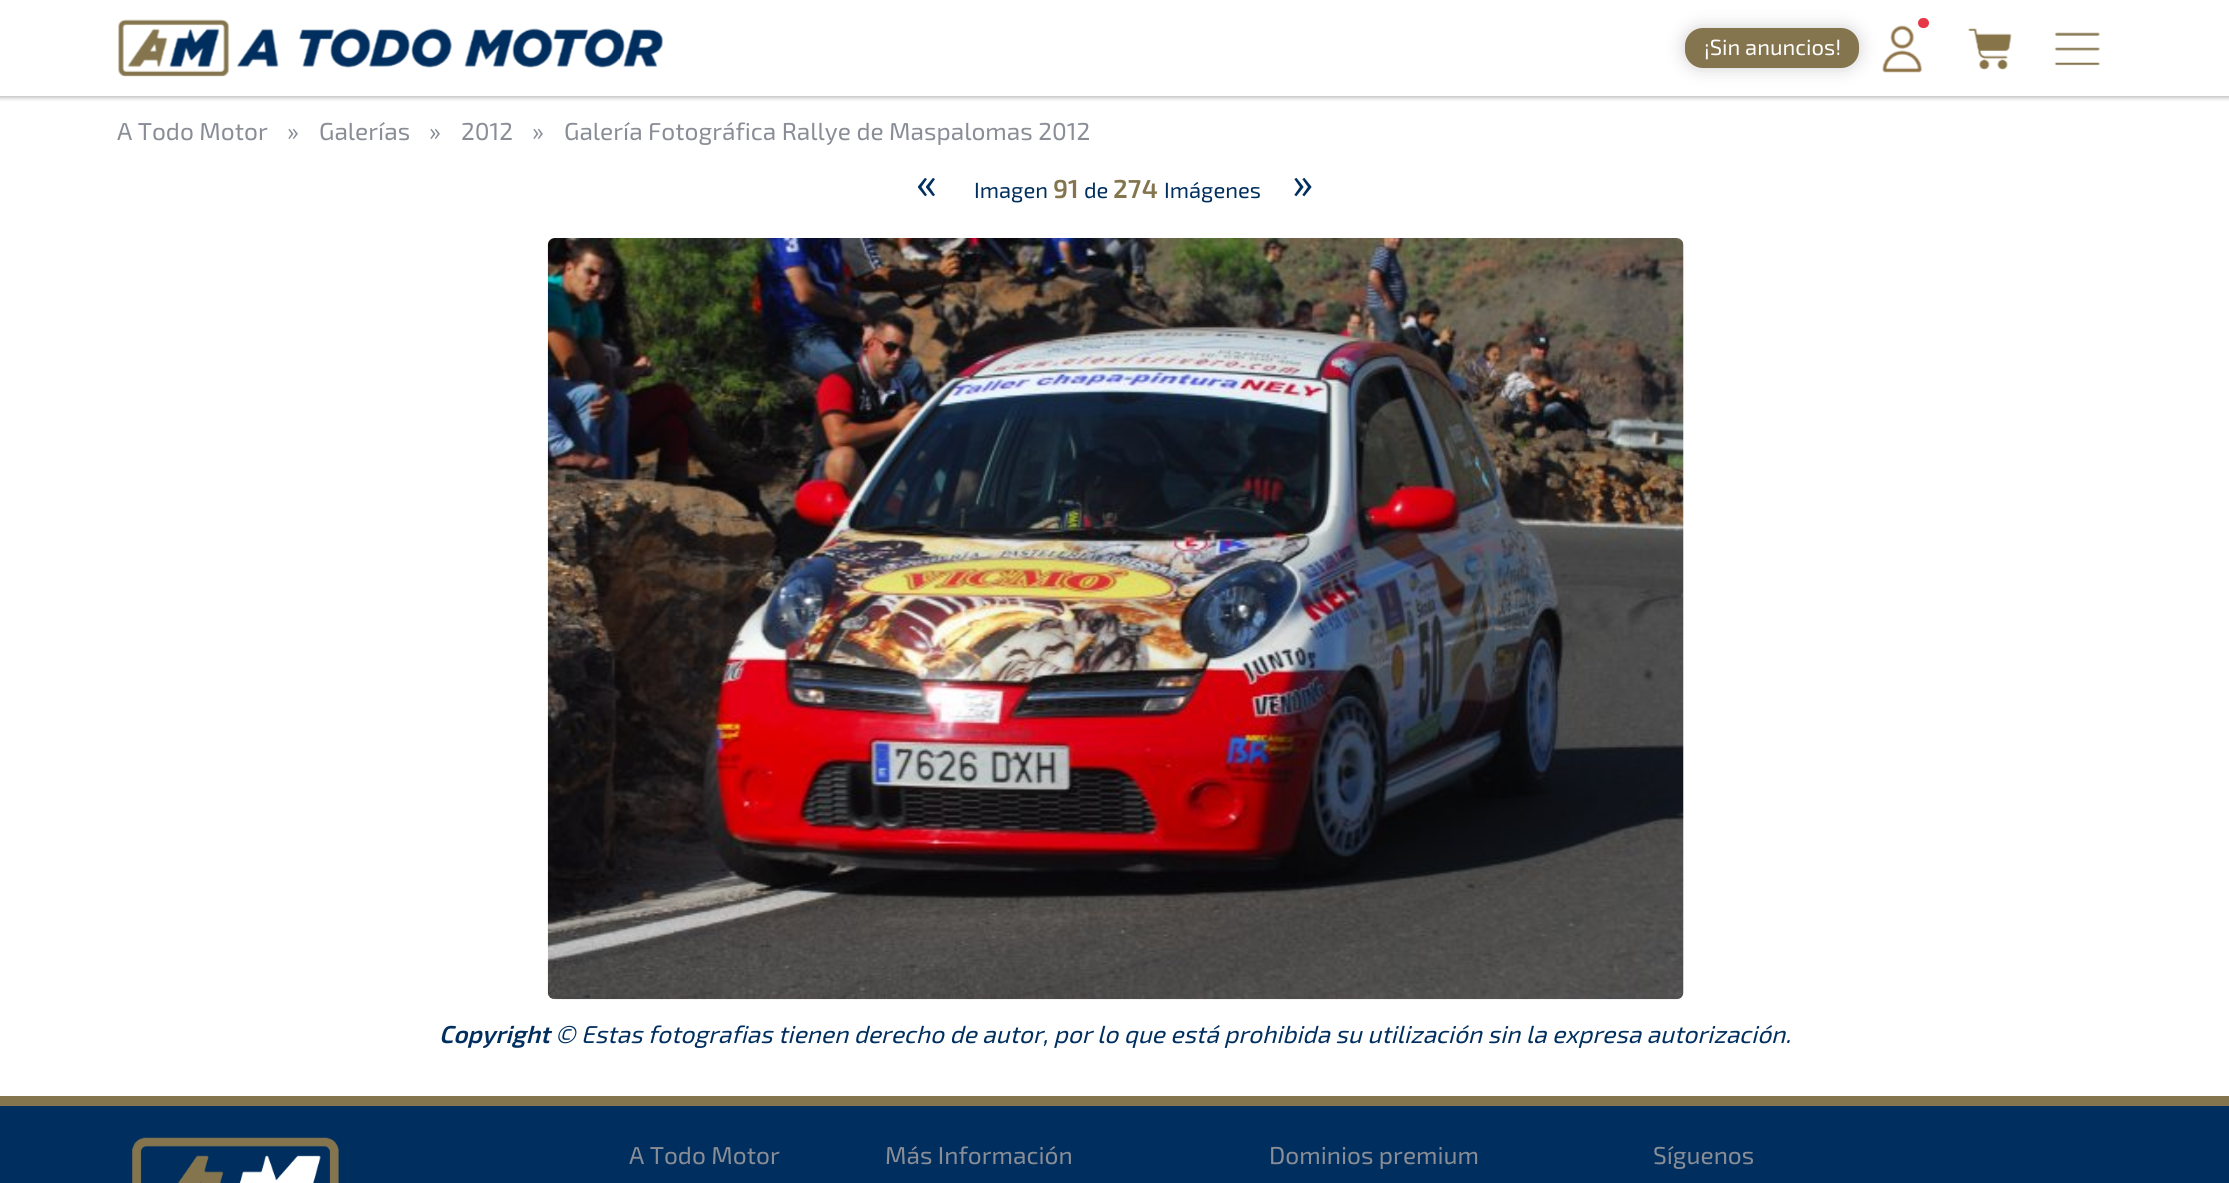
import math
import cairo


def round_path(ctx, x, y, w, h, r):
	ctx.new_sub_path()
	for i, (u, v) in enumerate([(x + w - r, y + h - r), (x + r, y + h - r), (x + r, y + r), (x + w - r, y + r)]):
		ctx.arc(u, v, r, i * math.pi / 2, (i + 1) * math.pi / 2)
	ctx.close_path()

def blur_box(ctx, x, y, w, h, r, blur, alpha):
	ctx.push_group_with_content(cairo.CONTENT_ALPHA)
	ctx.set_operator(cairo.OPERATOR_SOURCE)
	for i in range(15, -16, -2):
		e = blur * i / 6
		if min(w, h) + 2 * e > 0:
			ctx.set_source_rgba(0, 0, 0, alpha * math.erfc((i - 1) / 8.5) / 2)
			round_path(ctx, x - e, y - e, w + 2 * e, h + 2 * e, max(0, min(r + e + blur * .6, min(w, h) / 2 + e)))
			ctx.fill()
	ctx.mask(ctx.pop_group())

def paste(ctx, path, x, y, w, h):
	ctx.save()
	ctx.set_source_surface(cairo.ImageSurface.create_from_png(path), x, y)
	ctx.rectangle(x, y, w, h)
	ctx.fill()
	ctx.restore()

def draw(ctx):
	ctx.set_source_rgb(1, 1, 1)
	ctx.paint()
	ctx.save()
	ctx.rectangle(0, 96, 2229, 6)
	ctx.clip()
	ctx.set_source_rgb(0.753, 0.753, 0.753)
	blur_box(ctx, -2, -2, 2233, 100, 0, 2, 1)
	ctx.restore()
	paste(ctx, 'media/1.png', 118, 19, 545, 58)
	ctx.set_source_rgb(0, 0, 0)
	blur_box(ctx, 1685, 28, 174, 40, 18, 9, 0.18)
	ctx.set_source_rgb(0.518, 0.459, 0.306)
	round_path(ctx, 1685, 28, 174, 40, 18)
	ctx.fill()
	ctx.select_font_face('Exo 2')
	ctx.set_font_size(22)
	ctx.set_source_rgb(1, 1, 1)
	ctx.move_to(1704, 55)
	ctx.show_text('¡Sin anuncios!')
	paste(ctx, 'media/2.png', 1882, 25, 40, 48)
	ctx.set_source_rgb(0.902, 0.224, 0.275)
	round_path(ctx, 1918, 18, 11, 10, 5)
	ctx.fill()
	paste(ctx, 'media/3.png', 1968, 28, 44, 42)
	paste(ctx, 'media/4.png', 2054, 32, 46, 34)
	ctx.set_font_size(24.5)
	ctx.set_source_rgb(0.537, 0.553, 0.588)
	for x, y, s in [
		(117, 140, 'A Todo Motor'),
		(287, 140, '»'),
		(319, 140, 'Galerías'),
		(429, 140, '»'),
		(461, 140, '2012'),
		(532, 140, '»'),
		(564, 140, 'Galería Fotográfica Rallye de Maspalomas 2012'),
	]:
		ctx.move_to(x, y)
		ctx.show_text(s)
	ctx.set_font_size(44)
	ctx.set_source_rgb(0, 0.184, 0.373)
	ctx.move_to(916, 198)
	ctx.show_text('«')
	ctx.set_font_size(22)
	ctx.move_to(974, 198)
	ctx.show_text('Imagen')
	ctx.select_font_face('Exo 2 SemiBold')
	ctx.set_font_size(26)
	ctx.set_source_rgb(0.518, 0.459, 0.306)
	ctx.move_to(1053, 198)
	ctx.show_text('91')
	ctx.select_font_face('Exo 2')
	ctx.set_font_size(22)
	ctx.set_source_rgb(0, 0.184, 0.373)
	ctx.move_to(1084, 198)
	ctx.show_text('de')
	ctx.select_font_face('Exo 2 SemiBold')
	ctx.set_font_size(26)
	ctx.set_source_rgb(0.518, 0.459, 0.306)
	ctx.move_to(1113, 198)
	ctx.show_text('274')
	ctx.select_font_face('Exo 2')
	ctx.set_font_size(22)
	ctx.set_source_rgb(0, 0.184, 0.373)
	ctx.move_to(1164, 198)
	ctx.show_text('Imágenes')
	ctx.set_font_size(44)
	ctx.move_to(1292, 198)
	ctx.show_text('»')
	paste(ctx, 'media/5.png', 547, 238, 1137, 762)
	ctx.select_font_face('Exo 2 SemiBold', cairo.FONT_SLANT_ITALIC)
	ctx.set_font_size(24.5)
	ctx.move_to(439, 1043)
	ctx.show_text('Copyright')
	ctx.select_font_face('Exo 2', cairo.FONT_SLANT_ITALIC)
	ctx.move_to(555, 1043)
	ctx.show_text('© Estas fotografias tienen derecho de autor, por lo que está prohibida su utilización sin la expresa autorización.')
	ctx.rectangle(0, 1106, 2229, 77)
	ctx.fill()
	ctx.set_source_rgb(0.518, 0.459, 0.306)
	ctx.rectangle(0, 1096, 2229, 10)
	ctx.fill()
	paste(ctx, 'media/6.png', 132, 1137, 207, 46)
	ctx.select_font_face('Exo 2')
	ctx.set_source_rgb(0.537, 0.553, 0.588)
	for x, y, s in [
		(629, 1164, 'A Todo Motor'),
		(885, 1164, 'Más Información'),
		(1269, 1164, 'Dominios premium'),
		(1653, 1164, 'Síguenos'),
	]:
		ctx.move_to(x, y)
		ctx.show_text(s)


surface = cairo.ImageSurface(cairo.FORMAT_RGB24, 2229, 1183)
ctx = cairo.Context(surface)
options = cairo.FontOptions()
options.set_hint_metrics(cairo.HINT_METRICS_OFF)
options.set_hint_style(cairo.HINT_STYLE_NONE)
ctx.set_font_options(options)
ctx.set_miter_limit(4)
draw(ctx)
surface.write_to_png('image.png')
